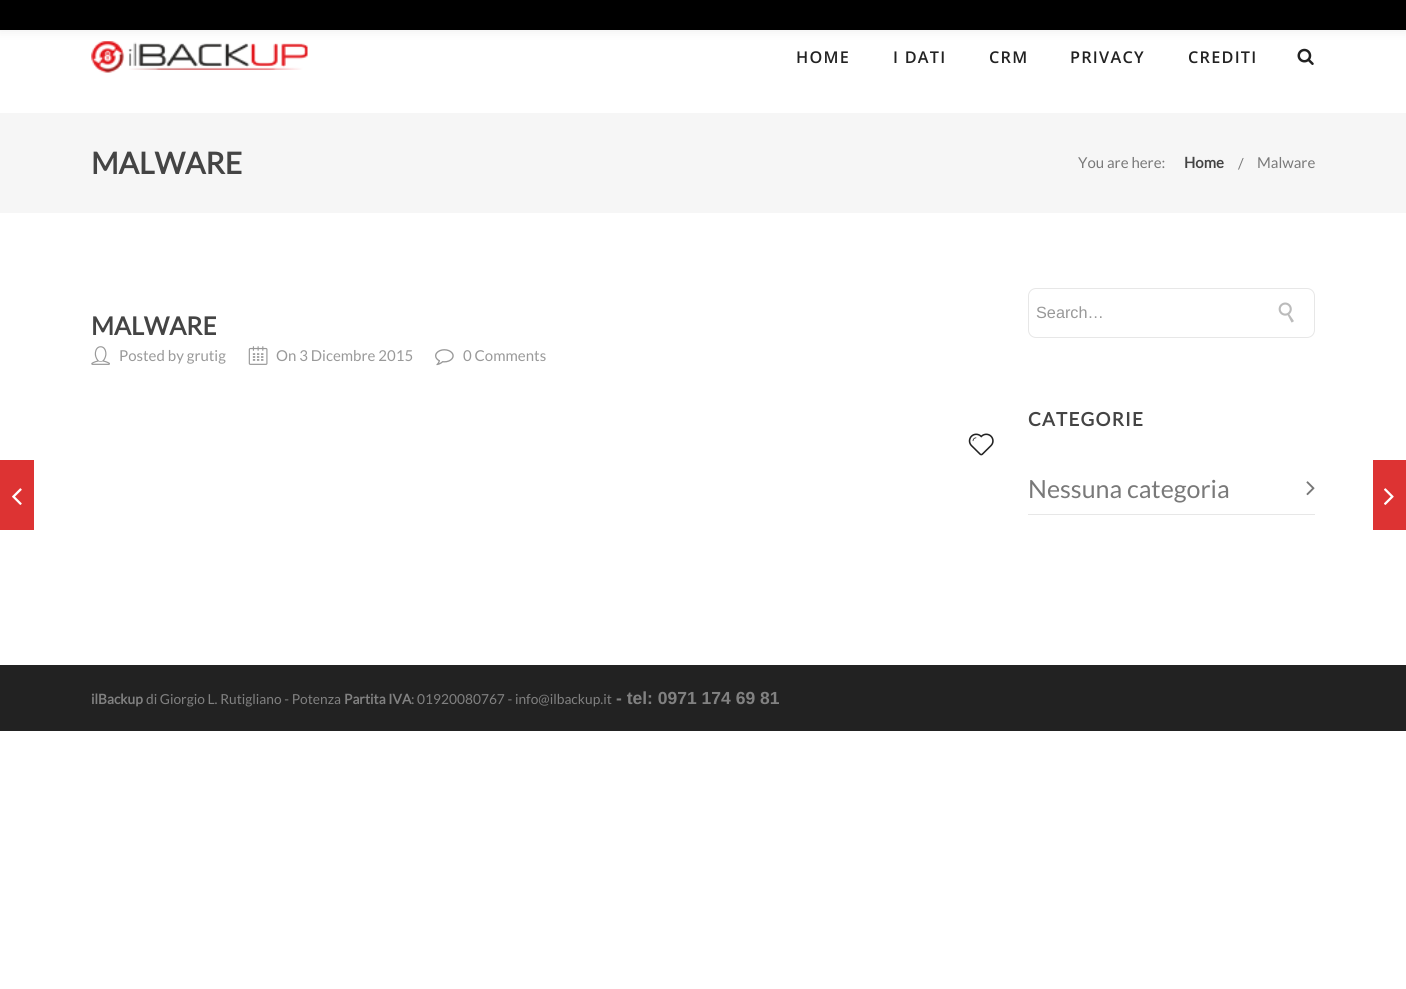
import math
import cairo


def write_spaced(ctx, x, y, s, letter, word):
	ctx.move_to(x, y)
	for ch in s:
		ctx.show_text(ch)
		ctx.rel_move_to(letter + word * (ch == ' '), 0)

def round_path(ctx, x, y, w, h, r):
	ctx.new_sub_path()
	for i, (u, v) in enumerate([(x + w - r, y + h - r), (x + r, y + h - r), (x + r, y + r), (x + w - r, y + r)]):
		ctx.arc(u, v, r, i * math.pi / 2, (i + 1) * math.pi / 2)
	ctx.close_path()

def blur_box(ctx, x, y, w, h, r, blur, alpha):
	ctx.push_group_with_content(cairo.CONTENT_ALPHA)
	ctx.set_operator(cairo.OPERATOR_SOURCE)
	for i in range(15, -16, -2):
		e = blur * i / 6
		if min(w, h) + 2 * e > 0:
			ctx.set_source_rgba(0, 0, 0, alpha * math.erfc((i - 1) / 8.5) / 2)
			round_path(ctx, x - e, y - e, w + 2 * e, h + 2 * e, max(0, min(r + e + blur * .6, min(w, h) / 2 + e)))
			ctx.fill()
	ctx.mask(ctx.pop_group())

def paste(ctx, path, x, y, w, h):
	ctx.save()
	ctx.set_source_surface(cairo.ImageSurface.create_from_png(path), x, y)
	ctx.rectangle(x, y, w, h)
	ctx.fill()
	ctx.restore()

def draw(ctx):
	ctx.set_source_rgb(1, 1, 1)
	ctx.paint()
	paste(ctx, 'media/1.png', 91, 41, 217, 32)
	ctx.set_source_rgb(0.675, 0.671, 0.671)
	blur_box(ctx, 0, -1, 1406, 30, 0, 6, 0.3)
	ctx.set_source_rgb(0, 0, 0)
	ctx.rectangle(0, 0, 1406, 30)
	ctx.fill()
	ctx.select_font_face('Open Sans SemiBold')
	ctx.set_font_size(16.25)
	ctx.set_source_rgb(0.133, 0.133, 0.133)
	for x, y, s in [
		(796, 63, 'HOME'),
		(893, 63, 'I DATI'),
		(989, 63, 'CRM'),
		(1070, 63, 'PRIVACY'),
		(1188, 63, 'CREDITI'),
	]:
		write_spaced(ctx, x, y, s, 1.25, 0)
	paste(ctx, 'media/2.png', 1297, 48, 17, 17)
	ctx.set_source_rgb(0.961, 0.961, 0.961)
	ctx.rectangle(0, 113, 1406, 100)
	ctx.fill()
	ctx.select_font_face('Lato', cairo.FONT_SLANT_NORMAL, cairo.FONT_WEIGHT_BOLD)
	ctx.set_font_size(30)
	ctx.set_source_rgb(0.267, 0.267, 0.267)
	ctx.move_to(91, 174)
	ctx.show_text('MALWARE')
	ctx.select_font_face('Lato')
	ctx.set_font_size(15)
	ctx.set_source_rgb(0.475, 0.475, 0.475)
	ctx.move_to(1078, 168)
	ctx.show_text('You are here:')
	ctx.select_font_face('Lato', cairo.FONT_SLANT_NORMAL, cairo.FONT_WEIGHT_BOLD)
	ctx.set_source_rgb(0.267, 0.267, 0.267)
	ctx.move_to(1184, 168)
	ctx.show_text('Home')
	ctx.select_font_face('Lato')
	ctx.set_source_rgb(0.475, 0.475, 0.475)
	ctx.move_to(1238, 169)
	ctx.show_text('/')
	ctx.move_to(1257, 168)
	ctx.show_text('Malware')
	ctx.select_font_face('Lato', cairo.FONT_SLANT_NORMAL, cairo.FONT_WEIGHT_BOLD)
	ctx.set_font_size(25)
	ctx.set_source_rgb(0.267, 0.267, 0.267)
	ctx.move_to(91, 335)
	ctx.show_text('MALWARE')
	paste(ctx, 'media/3.png', 91, 346, 19, 19)
	ctx.select_font_face('Lato')
	ctx.set_font_size(15)
	ctx.set_source_rgb(0.6, 0.6, 0.6)
	ctx.move_to(119, 361)
	ctx.show_text('Posted by grutig')
	paste(ctx, 'media/4.png', 248, 346, 20, 19)
	ctx.move_to(276, 361)
	ctx.show_text('On 3 Dicembre 2015')
	paste(ctx, 'media/5.png', 435, 349, 19, 17)
	ctx.move_to(463, 361)
	ctx.show_text('0 Comments')
	paste(ctx, 'media/6.png', 968, 433, 26, 23)
	round_path(ctx, 1028.5, 288.5, 286, 49, 7.5)
	ctx.set_source_rgb(0.906, 0.906, 0.906)
	ctx.set_line_width(1)
	ctx.stroke()
	ctx.select_font_face('Liberation Sans')
	ctx.set_font_size(16.25)
	ctx.set_source_rgb(0.6, 0.6, 0.6)
	ctx.move_to(1036, 318)
	ctx.show_text('Search…')
	paste(ctx, 'media/7.png', 1278, 302, 16, 21)
	ctx.select_font_face('Lato', cairo.FONT_SLANT_NORMAL, cairo.FONT_WEIGHT_BOLD)
	ctx.set_font_size(18.75)
	ctx.set_source_rgb(0.267, 0.267, 0.267)
	write_spaced(ctx, 1028, 426, 'CATEGORIE', 1.25, 0)
	ctx.set_source_rgb(0.906, 0.906, 0.906)
	ctx.rectangle(1028, 514, 287, 1)
	ctx.fill()
	ctx.select_font_face('Lato')
	ctx.set_font_size(25)
	ctx.set_source_rgb(0.475, 0.475, 0.475)
	ctx.move_to(1028, 498)
	ctx.show_text('Nessuna categoria')
	paste(ctx, 'media/8.png', 1306, 481, 9, 15)
	ctx.set_source_rgb(0.867, 0.2, 0.2)
	ctx.rectangle(0, 460, 34, 70)
	ctx.fill()
	paste(ctx, 'media/9.png', 12, 488, 10, 17)
	ctx.rectangle(1373, 460, 33, 70)
	ctx.fill()
	paste(ctx, 'media/10.png', 1384, 488, 10, 17)
	ctx.set_source_rgb(0.133, 0.133, 0.133)
	ctx.rectangle(0, 665, 1406, 66)
	ctx.fill()
	ctx.select_font_face('Lato', cairo.FONT_SLANT_NORMAL, cairo.FONT_WEIGHT_BOLD)
	ctx.set_font_size(13.75)
	ctx.set_source_rgb(0.506, 0.506, 0.506)
	ctx.move_to(91, 704)
	ctx.show_text('ilBackup')
	ctx.select_font_face('Lato')
	ctx.move_to(146, 704)
	ctx.show_text('di Giorgio L. Rutigliano - Potenza')
	ctx.select_font_face('Lato', cairo.FONT_SLANT_NORMAL, cairo.FONT_WEIGHT_BOLD)
	ctx.move_to(344, 704)
	ctx.show_text('Partita IVA')
	ctx.select_font_face('Lato')
	ctx.move_to(411, 704)
	ctx.show_text(': 01920080767 - info@ilbackup.it')
	ctx.select_font_face('Liberation Sans', cairo.FONT_SLANT_NORMAL, cairo.FONT_WEIGHT_BOLD)
	ctx.set_font_size(17.5)
	ctx.move_to(616, 704)
	ctx.show_text('- tel: 0971 174 69 81')


surface = cairo.ImageSurface(cairo.FORMAT_RGB24, 1406, 989)
ctx = cairo.Context(surface)
options = cairo.FontOptions()
options.set_hint_metrics(cairo.HINT_METRICS_OFF)
options.set_hint_style(cairo.HINT_STYLE_NONE)
ctx.set_font_options(options)
ctx.set_miter_limit(4)
draw(ctx)
surface.write_to_png('image.png')
